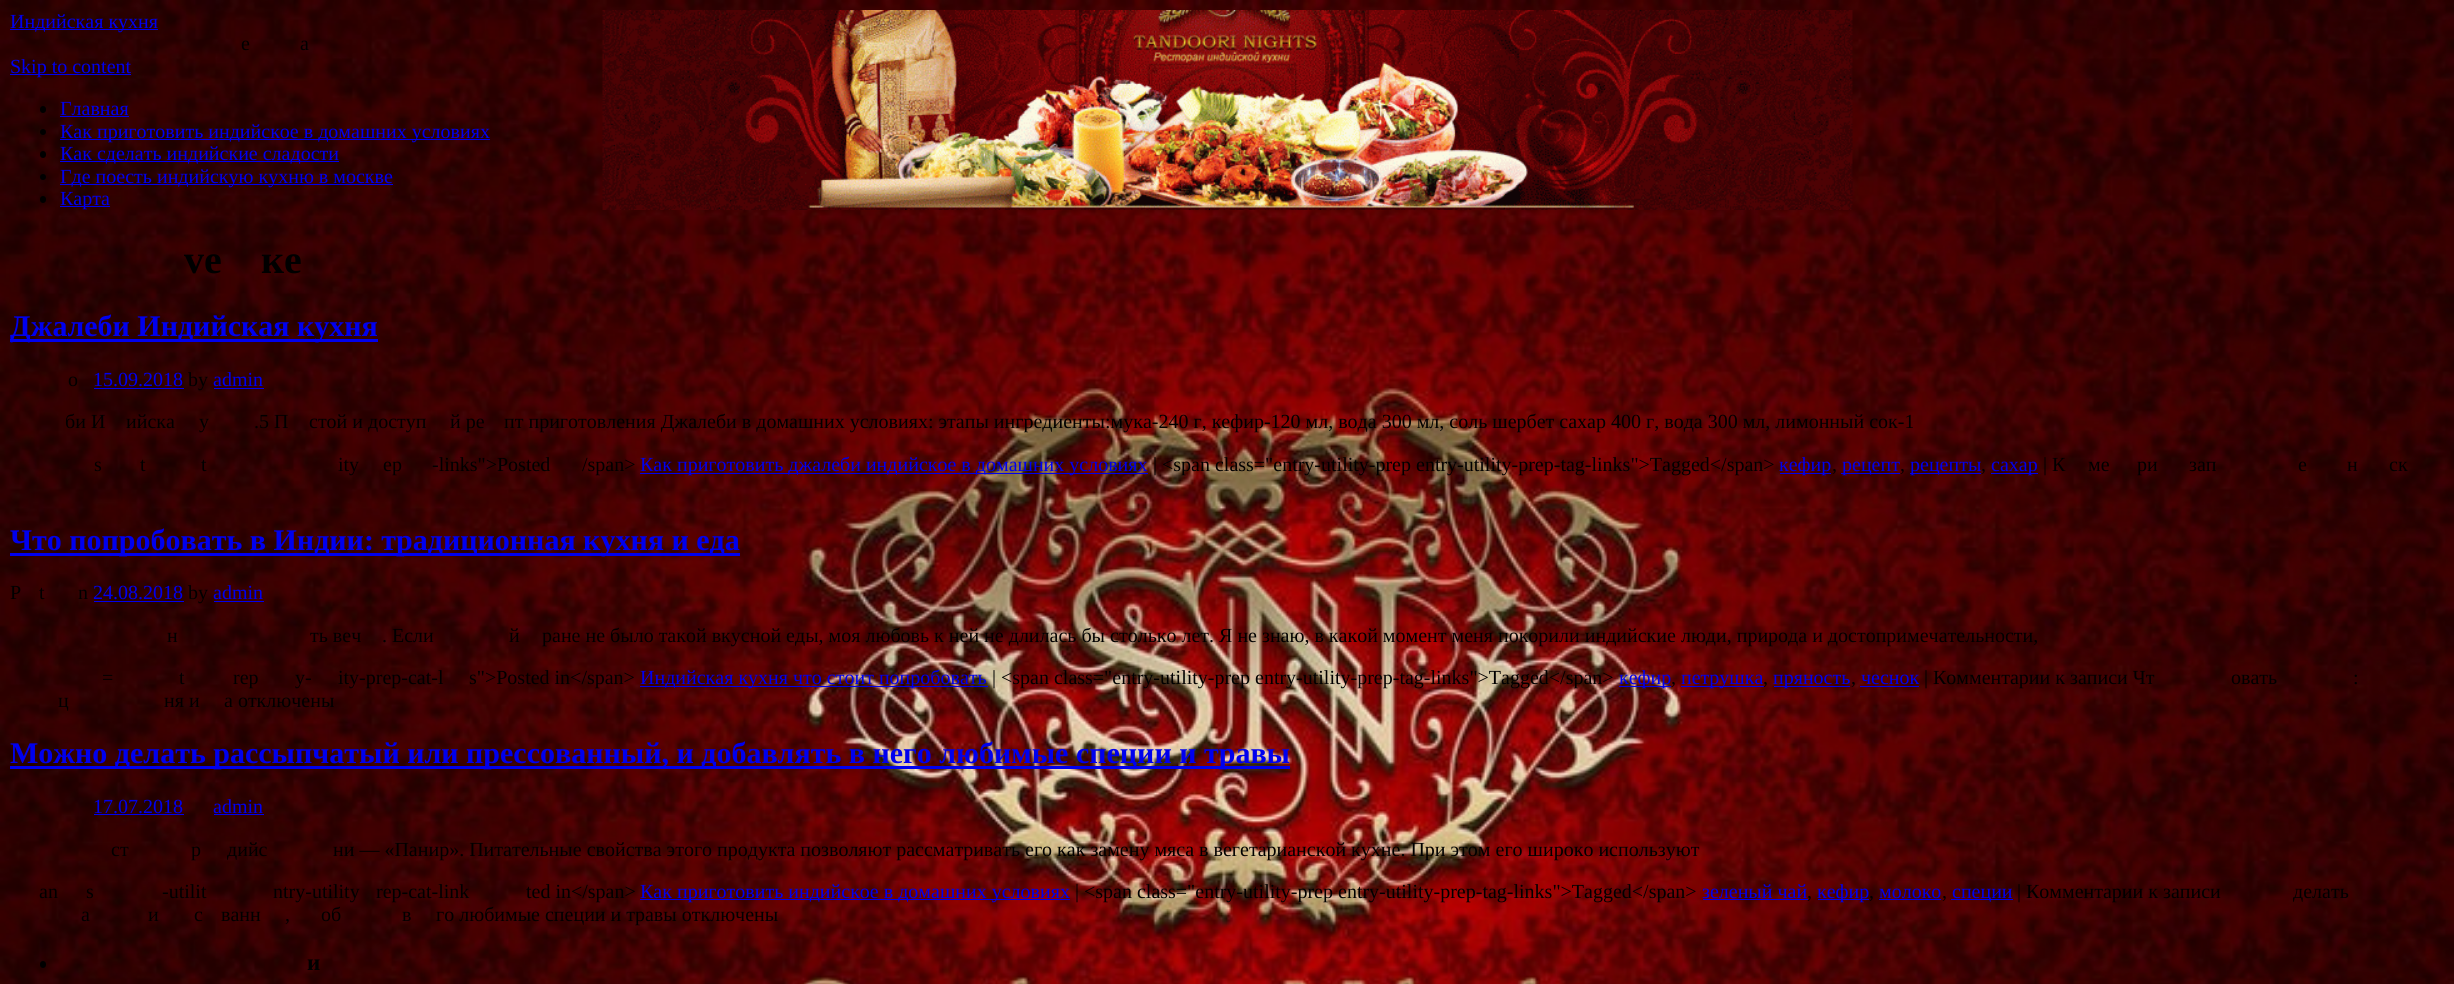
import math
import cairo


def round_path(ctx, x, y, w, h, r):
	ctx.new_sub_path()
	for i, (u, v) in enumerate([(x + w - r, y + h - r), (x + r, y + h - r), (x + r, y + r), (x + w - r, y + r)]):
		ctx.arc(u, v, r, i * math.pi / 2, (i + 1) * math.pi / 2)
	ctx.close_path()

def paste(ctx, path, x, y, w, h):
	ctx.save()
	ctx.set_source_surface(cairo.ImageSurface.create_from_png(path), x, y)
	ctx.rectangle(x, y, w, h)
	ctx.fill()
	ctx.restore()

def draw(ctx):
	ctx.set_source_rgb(1, 1, 1)
	ctx.paint()
	paste(ctx, 'media/1.png', 0, 0, 2454, 984)
	paste(ctx, 'media/2.png', 602, 10, 1251, 200)
	ctx.set_source_rgb(0, 0, 0.933)
	ctx.rectangle(10, 29, 148, 1)
	ctx.fill()
	ctx.select_font_face('Liberation Serif')
	ctx.set_font_size(20)
	ctx.move_to(10, 28)
	ctx.show_text('Индийская кухня')
	ctx.set_source_rgb(0, 0, 0)
	ctx.move_to(241, 50)
	ctx.show_text('е')
	ctx.move_to(300, 50)
	ctx.show_text('а')
	ctx.set_source_rgb(0, 0, 0.933)
	ctx.rectangle(10, 74, 121, 1)
	ctx.fill()
	ctx.move_to(10, 73)
	ctx.show_text('Skip to content')
	ctx.set_source_rgb(0, 0, 0)
	round_path(ctx, 40, 106, 6, 7, 3)
	ctx.fill()
	ctx.set_source_rgb(0, 0, 0.933)
	ctx.move_to(60, 115)
	ctx.show_text('Главная')
	ctx.rectangle(60, 116, 69, 1)
	ctx.fill()
	ctx.set_source_rgb(0, 0, 0)
	ctx.arc(43, 132, 3, 0, 2 * math.pi)
	ctx.fill()
	ctx.set_source_rgb(0, 0, 0.933)
	ctx.rectangle(60, 139, 430, 1)
	ctx.fill()
	ctx.move_to(60, 138)
	ctx.show_text('Как приготовить индийское в домашних условиях')
	ctx.set_source_rgb(0, 0, 0)
	round_path(ctx, 40, 151, 6, 7, 3)
	ctx.fill()
	ctx.set_source_rgb(0, 0, 0.933)
	ctx.rectangle(60, 161, 279, 1)
	ctx.fill()
	ctx.move_to(60, 160)
	ctx.show_text('Как сделать индийские сладости')
	ctx.set_source_rgb(0, 0, 0)
	ctx.new_path()
	ctx.arc(43, 177, 3, 0, 2 * math.pi)
	ctx.fill()
	ctx.set_source_rgb(0, 0, 0.933)
	ctx.rectangle(60, 184, 333, 1)
	ctx.fill()
	ctx.move_to(60, 183)
	ctx.show_text('Где поесть индийскую кухню в москве')
	ctx.set_source_rgb(0, 0, 0)
	round_path(ctx, 40, 196, 6, 7, 3)
	ctx.fill()
	ctx.set_source_rgb(0, 0, 0.933)
	ctx.rectangle(60, 206, 50, 1)
	ctx.fill()
	ctx.move_to(60, 205)
	ctx.show_text('Карта')
	ctx.select_font_face('Liberation Serif', cairo.FONT_SLANT_NORMAL, cairo.FONT_WEIGHT_BOLD)
	ctx.set_font_size(40)
	ctx.set_source_rgb(0, 0, 0)
	ctx.move_to(184, 273)
	ctx.show_text('ve')
	ctx.move_to(261, 273)
	ctx.show_text('ке')
	ctx.set_source_rgb(0, 0, 0.933)
	ctx.rectangle(10, 339, 368, 3)
	ctx.fill()
	ctx.set_font_size(30)
	ctx.move_to(10, 336)
	ctx.show_text('Джалеби Индийская кухня')
	ctx.select_font_face('Liberation Serif')
	ctx.set_font_size(20)
	ctx.set_source_rgb(0, 0, 0)
	ctx.move_to(68, 386)
	ctx.show_text('o')
	ctx.set_source_rgb(0, 0, 0.933)
	ctx.move_to(93, 386)
	ctx.show_text('15.09.2018')
	ctx.rectangle(94, 388, 90, 1)
	ctx.fill()
	ctx.set_source_rgb(0, 0, 0)
	ctx.move_to(188, 386)
	ctx.show_text('by')
	ctx.set_source_rgb(0, 0, 0.933)
	ctx.move_to(213, 386)
	ctx.show_text('admin')
	ctx.rectangle(214, 388, 50, 1)
	ctx.fill()
	ctx.set_source_rgb(0, 0, 0)
	for x, y, s in [
		(65, 428, 'би И'),
		(126, 428, 'ийска'),
		(199, 428, 'у'),
		(254, 428, '.5 П'),
		(309, 428, 'стой и доступ'),
		(450, 428, 'й ре'),
		(504, 428, 'пт приготовления Джалеби в домашних условиях: этапы ингредиенты:мука-240 г, кефир-120 мл, вода 300 мл, соль шербет сахар 400 г, вода 300 мл, лимонный сок-1'),
		(94, 471, 's'),
		(140, 471, 't'),
		(201, 471, 't'),
		(338, 471, 'ity'),
		(383, 471, 'ep'),
		(432, 471, '-links">Posted'),
		(582, 471, '/span>'),
	]:
		ctx.move_to(x, y)
		ctx.show_text(s)
	ctx.set_source_rgb(0, 0, 0.933)
	ctx.rectangle(640, 473, 508, 1)
	ctx.fill()
	ctx.move_to(640, 471)
	ctx.show_text('Как приготовить джалеби индийское в домашних условиях')
	ctx.set_source_rgb(0, 0, 0)
	ctx.move_to(1153, 471)
	ctx.show_text('| <span class="entry-utility-prep entry-utility-prep-tag-links">Tagged</span>')
	ctx.set_source_rgb(0, 0, 0.933)
	ctx.rectangle(1780, 473, 51, 1)
	ctx.fill()
	ctx.move_to(1779, 471)
	ctx.show_text('кефир')
	ctx.set_source_rgb(0, 0, 0)
	ctx.move_to(1832, 471)
	ctx.show_text(',')
	ctx.set_source_rgb(0, 0, 0.933)
	ctx.rectangle(1841, 473, 59, 1)
	ctx.fill()
	ctx.move_to(1842, 471)
	ctx.show_text('рецепт')
	ctx.set_source_rgb(0, 0, 0)
	ctx.move_to(1900, 471)
	ctx.show_text(',')
	ctx.set_source_rgb(0, 0, 0.933)
	ctx.rectangle(1910, 473, 71, 1)
	ctx.fill()
	ctx.move_to(1910, 471)
	ctx.show_text('рецепты')
	ctx.set_source_rgb(0, 0, 0)
	ctx.move_to(1981, 471)
	ctx.show_text(',')
	ctx.set_source_rgb(0, 0, 0.933)
	ctx.rectangle(1991, 473, 47, 1)
	ctx.fill()
	ctx.move_to(1991, 471)
	ctx.show_text('сахар')
	ctx.set_source_rgb(0, 0, 0)
	for x, y, s in [
		(2043, 471, '| К'),
		(2088, 471, 'ме'),
		(2137, 471, 'ри'),
		(2189, 471, 'зап'),
		(2298, 471, 'е'),
		(2347, 471, 'н'),
		(2389, 471, 'ск'),
	]:
		ctx.move_to(x, y)
		ctx.show_text(s)
	ctx.set_source_rgb(0, 0, 0.933)
	ctx.rectangle(10, 553, 730, 3)
	ctx.fill()
	ctx.select_font_face('Liberation Serif', cairo.FONT_SLANT_NORMAL, cairo.FONT_WEIGHT_BOLD)
	ctx.set_font_size(30)
	ctx.move_to(10, 550)
	ctx.show_text('Что попробовать в Индии: традиционная кухня и еда')
	ctx.select_font_face('Liberation Serif')
	ctx.set_font_size(20)
	ctx.set_source_rgb(0, 0, 0)
	for x, y, s in [
		(10, 599, 'P'),
		(39, 599, 't'),
		(78, 599, 'n'),
	]:
		ctx.move_to(x, y)
		ctx.show_text(s)
	ctx.set_source_rgb(0, 0, 0.933)
	ctx.move_to(93, 599)
	ctx.show_text('24.08.2018')
	ctx.rectangle(94, 601, 90, 1)
	ctx.fill()
	ctx.set_source_rgb(0, 0, 0)
	ctx.move_to(188, 599)
	ctx.show_text('by')
	ctx.set_source_rgb(0, 0, 0.933)
	ctx.move_to(213, 599)
	ctx.show_text('admin')
	ctx.rectangle(214, 601, 50, 1)
	ctx.fill()
	ctx.set_source_rgb(0, 0, 0)
	for x, y, s in [
		(167, 642, 'н'),
		(310, 642, 'ть веч'),
		(382, 642, '. Если'),
		(509, 642, 'й'),
		(542, 642, 'ране не было такой вкусной еды, моя любовь к ней не длилась бы столько лет. Я не знаю, в какой момент меня покорили индийские люди, природа и достопримечательности,'),
		(102, 684, '='),
		(179, 684, 't'),
		(233, 684, 'rep'),
		(295, 684, 'y-'),
		(338, 684, 'ity-prep-cat-l'),
		(469, 684, 's">Posted in</span>'),
	]:
		ctx.move_to(x, y)
		ctx.show_text(s)
	ctx.set_source_rgb(0, 0, 0.933)
	ctx.rectangle(640, 686, 348, 1)
	ctx.fill()
	ctx.move_to(640, 684)
	ctx.show_text('Индийская кухня что стоит попробовать')
	ctx.set_source_rgb(0, 0, 0)
	ctx.move_to(992, 684)
	ctx.show_text('| <span class="entry-utility-prep entry-utility-prep-tag-links">Tagged</span>')
	ctx.set_source_rgb(0, 0, 0.933)
	ctx.rectangle(1619, 686, 52, 1)
	ctx.fill()
	ctx.move_to(1619, 684)
	ctx.show_text('кефир')
	ctx.set_source_rgb(0, 0, 0)
	ctx.move_to(1671, 684)
	ctx.show_text(',')
	ctx.set_source_rgb(0, 0, 0.933)
	ctx.rectangle(1681, 686, 83, 1)
	ctx.fill()
	ctx.move_to(1681, 684)
	ctx.show_text('петрушка')
	ctx.set_source_rgb(0, 0, 0)
	ctx.move_to(1763, 684)
	ctx.show_text(',')
	ctx.set_source_rgb(0, 0, 0.933)
	ctx.rectangle(1774, 686, 76, 1)
	ctx.fill()
	ctx.move_to(1773, 684)
	ctx.show_text('пряность')
	ctx.set_source_rgb(0, 0, 0)
	ctx.move_to(1851, 684)
	ctx.show_text(',')
	ctx.set_source_rgb(0, 0, 0.933)
	ctx.rectangle(1860, 686, 59, 1)
	ctx.fill()
	ctx.move_to(1861, 684)
	ctx.show_text('чеснок')
	ctx.set_source_rgb(0, 0, 0)
	for x, y, s in [
		(1924, 684, '| Комментарии к записи Чт'),
		(2231, 684, 'овать'),
		(2353, 684, ':'),
		(58, 707, 'ц'),
		(164, 707, 'ня и'),
		(224, 707, 'а отключены'),
	]:
		ctx.move_to(x, y)
		ctx.show_text(s)
	ctx.set_source_rgb(0, 0, 0.933)
	ctx.rectangle(10, 766, 1280, 3)
	ctx.fill()
	ctx.select_font_face('Liberation Serif', cairo.FONT_SLANT_NORMAL, cairo.FONT_WEIGHT_BOLD)
	ctx.set_font_size(30)
	ctx.move_to(10, 763)
	ctx.show_text('Можно делать рассыпчатый или прессованный, и добавлять в него любимые специи и травы')
	ctx.select_font_face('Liberation Serif')
	ctx.set_font_size(20)
	ctx.move_to(93, 813)
	ctx.show_text('17.07.2018')
	ctx.rectangle(94, 814, 90, 1)
	ctx.fill()
	ctx.move_to(213, 813)
	ctx.show_text('admin')
	ctx.rectangle(214, 814, 50, 1)
	ctx.fill()
	ctx.set_source_rgb(0, 0, 0)
	for x, y, s in [
		(111, 856, 'ст'),
		(191, 856, 'р'),
		(227, 856, 'дийс'),
		(333, 856, 'ни — «Панир». Питательные свойства этого продукта позволяют рассматривать его как замену мяса в вегетарианской кухне. При этом его широко используют'),
		(39, 898, 'an'),
		(86, 898, 's'),
		(162, 898, '-utilit'),
		(273, 898, 'ntry-utility'),
		(376, 898, 'rep-cat-link'),
		(526, 898, 'ted in</span>'),
	]:
		ctx.move_to(x, y)
		ctx.show_text(s)
	ctx.set_source_rgb(0, 0, 0.933)
	ctx.rectangle(640, 899, 430, 1)
	ctx.fill()
	ctx.move_to(640, 898)
	ctx.show_text('Как приготовить индийское в домашних условиях')
	ctx.set_source_rgb(0, 0, 0)
	ctx.move_to(1075, 898)
	ctx.show_text('| <span class="entry-utility-prep entry-utility-prep-tag-links">Tagged</span>')
	ctx.set_source_rgb(0, 0, 0.933)
	ctx.move_to(1702, 898)
	ctx.show_text('зеленый чай')
	ctx.rectangle(1703, 899, 105, 1)
	ctx.fill()
	ctx.set_source_rgb(0, 0, 0)
	ctx.move_to(1807, 898)
	ctx.show_text(',')
	ctx.set_source_rgb(0, 0, 0.933)
	ctx.rectangle(1818, 899, 51, 1)
	ctx.fill()
	ctx.move_to(1817, 898)
	ctx.show_text('кефир')
	ctx.set_source_rgb(0, 0, 0)
	ctx.move_to(1869, 898)
	ctx.show_text(',')
	ctx.set_source_rgb(0, 0, 0.933)
	ctx.move_to(1879, 898)
	ctx.show_text('молоко')
	ctx.set_source_rgb(0, 0, 0)
	ctx.move_to(1942, 898)
	ctx.show_text(',')
	ctx.set_source_rgb(0, 0, 0.933)
	ctx.rectangle(1879, 899, 62, 1)
	ctx.fill()
	ctx.rectangle(1951, 899, 62, 1)
	ctx.fill()
	ctx.move_to(1952, 898)
	ctx.show_text('специи')
	ctx.set_source_rgb(0, 0, 0)
	for x, y, s in [
		(2017, 898, '| Комментарии к записи'),
		(2293, 898, 'делать'),
		(81, 921, 'а'),
		(148, 921, 'и'),
		(194, 921, 'с'),
		(221, 921, 'ванн'),
		(285, 921, ','),
		(321, 921, 'об'),
		(402, 921, 'в'),
		(436, 921, 'го любимые специи и травы отключены'),
	]:
		ctx.move_to(x, y)
		ctx.show_text(s)
	round_path(ctx, 40, 961, 6, 7, 3)
	ctx.fill()
	ctx.select_font_face('Liberation Serif', cairo.FONT_SLANT_NORMAL, cairo.FONT_WEIGHT_BOLD)
	ctx.set_font_size(23)
	ctx.move_to(307, 970)
	ctx.show_text('и')


surface = cairo.ImageSurface(cairo.FORMAT_RGB24, 2454, 984)
ctx = cairo.Context(surface)
options = cairo.FontOptions()
options.set_hint_metrics(cairo.HINT_METRICS_OFF)
options.set_hint_style(cairo.HINT_STYLE_NONE)
ctx.set_font_options(options)
ctx.set_miter_limit(4)
draw(ctx)
surface.write_to_png('image.png')
